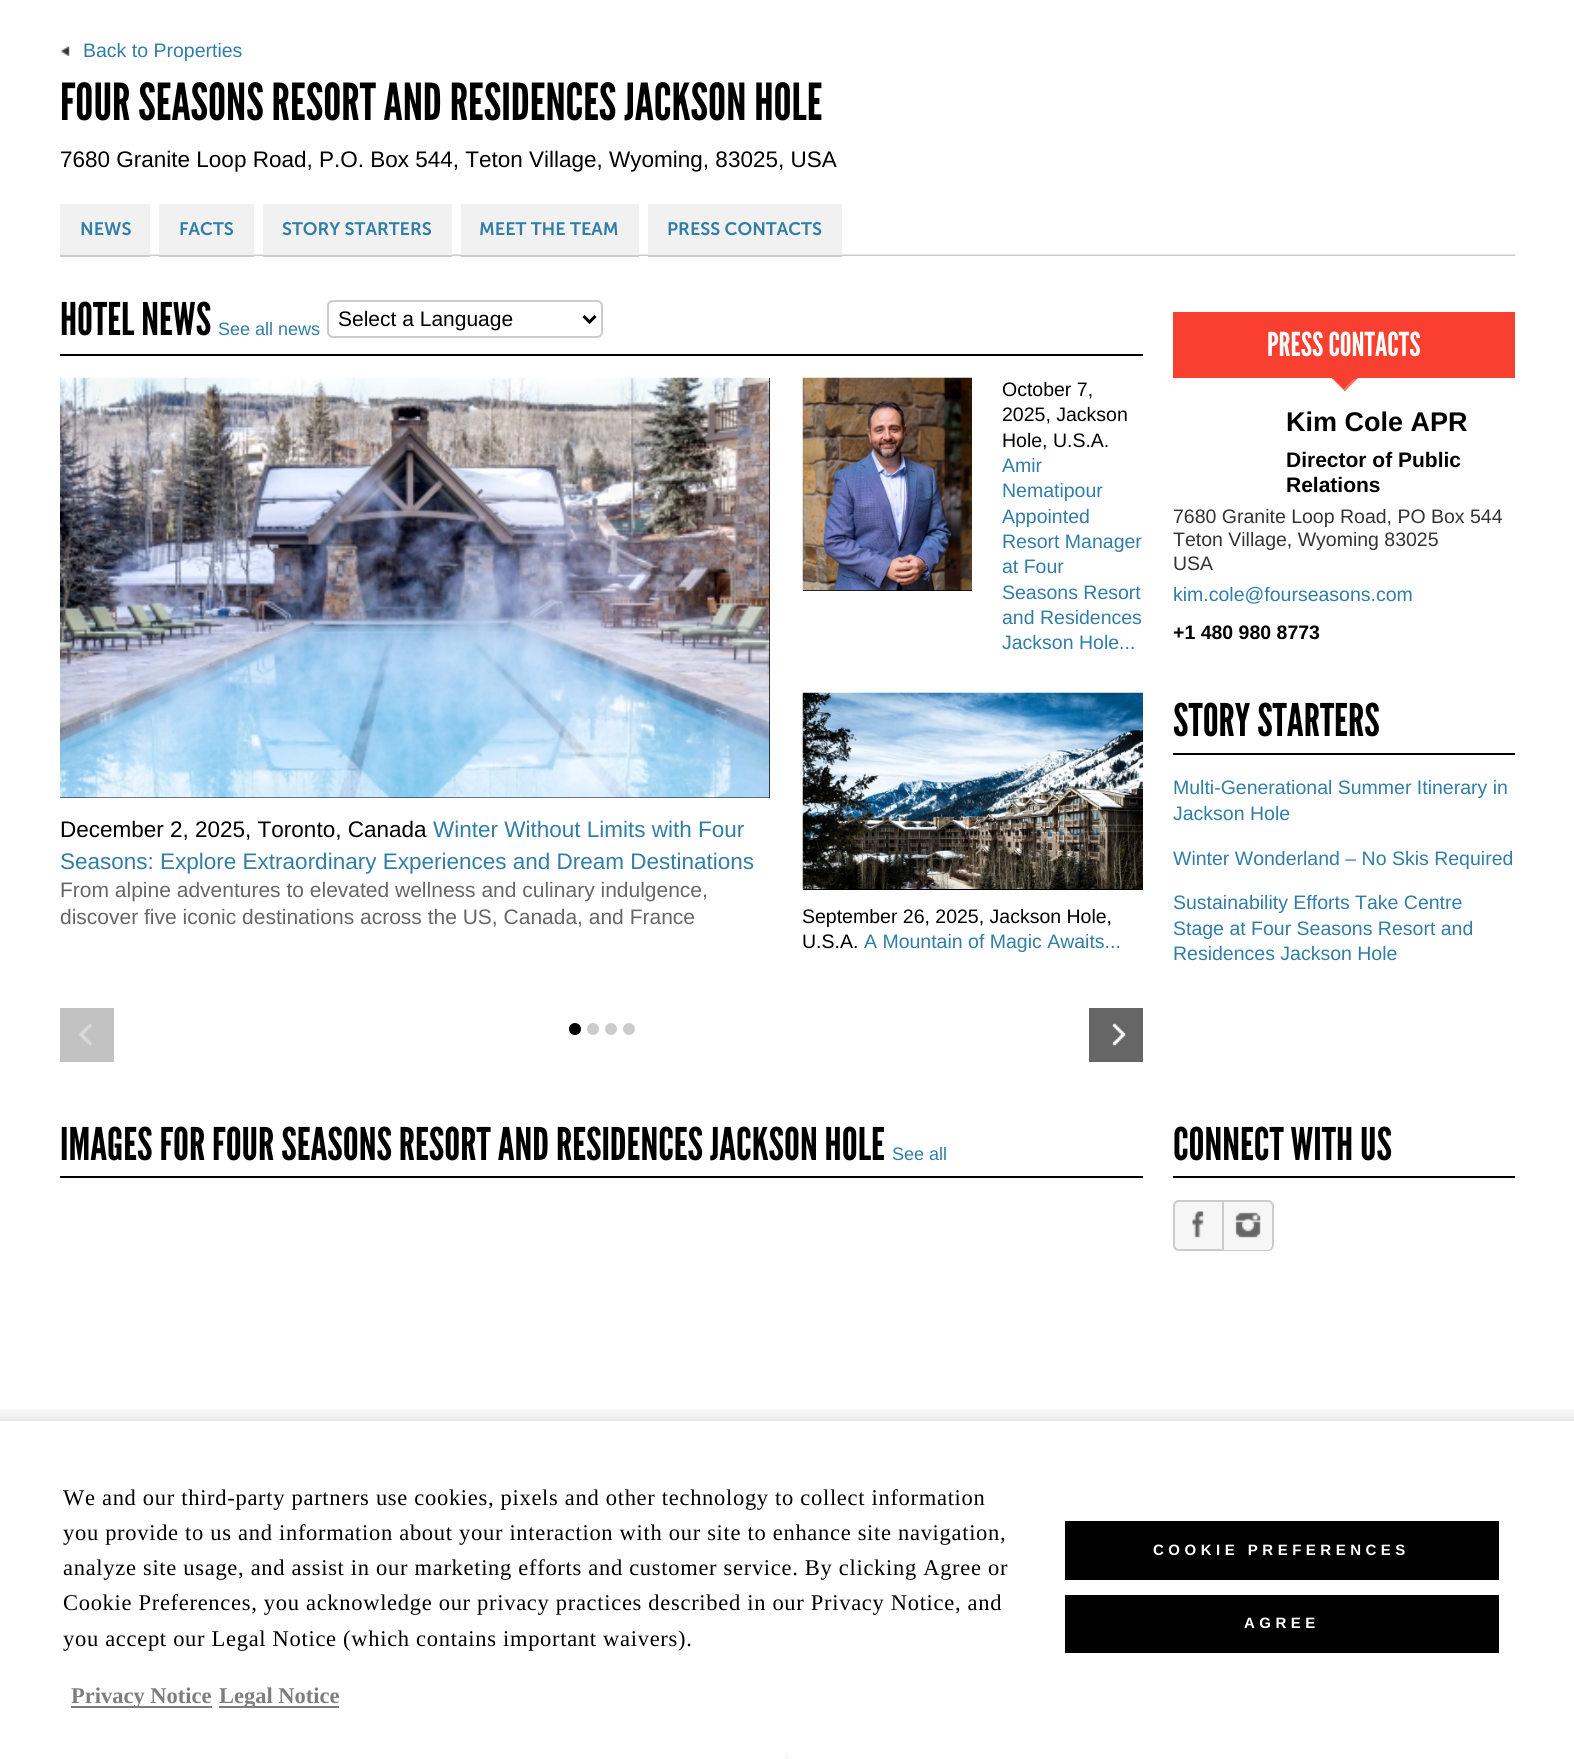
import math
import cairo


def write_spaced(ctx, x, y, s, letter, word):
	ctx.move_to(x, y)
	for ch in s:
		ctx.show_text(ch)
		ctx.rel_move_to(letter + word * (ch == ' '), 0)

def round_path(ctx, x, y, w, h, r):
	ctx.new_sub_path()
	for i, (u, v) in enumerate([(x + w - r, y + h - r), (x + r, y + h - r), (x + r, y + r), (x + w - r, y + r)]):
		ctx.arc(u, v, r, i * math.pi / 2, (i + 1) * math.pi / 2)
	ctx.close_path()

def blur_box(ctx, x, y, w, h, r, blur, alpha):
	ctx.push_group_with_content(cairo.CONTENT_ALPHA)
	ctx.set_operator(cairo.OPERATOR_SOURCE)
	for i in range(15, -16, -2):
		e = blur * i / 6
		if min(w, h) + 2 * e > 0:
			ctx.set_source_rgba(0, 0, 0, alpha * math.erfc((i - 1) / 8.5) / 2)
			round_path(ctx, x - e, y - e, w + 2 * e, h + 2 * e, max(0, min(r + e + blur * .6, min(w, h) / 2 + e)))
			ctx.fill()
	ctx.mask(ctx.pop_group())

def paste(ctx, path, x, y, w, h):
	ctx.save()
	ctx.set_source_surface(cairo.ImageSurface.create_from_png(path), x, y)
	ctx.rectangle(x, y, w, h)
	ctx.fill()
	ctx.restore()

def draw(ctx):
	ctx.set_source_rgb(1, 1, 1)
	ctx.paint()
	paste(ctx, 'media/1.png', 61, 46, 9, 10)
	ctx.select_font_face('Liberation Sans')
	ctx.set_font_size(19.5)
	ctx.set_source_rgb(0.188, 0.49, 0.651)
	ctx.move_to(83, 57)
	ctx.show_text('Back to Properties')
	ctx.select_font_face('League Gothic')
	ctx.set_font_size(51)
	ctx.set_source_rgb(0, 0, 0)
	ctx.move_to(60, 120)
	ctx.show_text('FOUR SEASONS RESORT AND RESIDENCES JACKSON HOLE')
	ctx.select_font_face('Liberation Sans')
	ctx.set_font_size(22.5)
	ctx.move_to(60, 167)
	ctx.show_text('7680 Granite Loop Road, P.O. Box 544, Teton Village, Wyoming, 83025, USA')
	paste(ctx, 'media/2.png', 150, 254, 1365, 2)
	ctx.set_source_rgb(0.945, 0.945, 0.945)
	ctx.rectangle(60, 204, 90, 51)
	ctx.fill()
	ctx.set_source_rgb(0.8, 0.8, 0.8)
	ctx.rectangle(60, 255, 90, 2)
	ctx.fill()
	ctx.select_font_face('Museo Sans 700 SemiBold')
	ctx.set_font_size(18)
	ctx.set_source_rgb(0.188, 0.49, 0.651)
	ctx.move_to(80, 235)
	ctx.show_text('NEWS')
	ctx.set_source_rgb(0.945, 0.945, 0.945)
	ctx.rectangle(159, 204, 95, 51)
	ctx.fill()
	ctx.set_source_rgb(0.8, 0.8, 0.8)
	ctx.rectangle(159, 256, 95, 1)
	ctx.fill()
	ctx.set_source_rgb(0.188, 0.49, 0.651)
	ctx.move_to(179, 235)
	ctx.show_text('FACTS')
	ctx.set_source_rgb(0.945, 0.945, 0.945)
	ctx.rectangle(263, 204, 189, 51)
	ctx.fill()
	ctx.set_source_rgb(0.8, 0.8, 0.8)
	ctx.rectangle(263, 256, 189, 1)
	ctx.fill()
	ctx.set_source_rgb(0.188, 0.49, 0.651)
	ctx.move_to(282, 235)
	ctx.show_text('STORY STARTERS')
	ctx.set_source_rgb(0.945, 0.945, 0.945)
	ctx.rectangle(461, 204, 178, 51)
	ctx.fill()
	ctx.set_source_rgb(0.8, 0.8, 0.8)
	ctx.rectangle(461, 256, 178, 1)
	ctx.fill()
	ctx.set_source_rgb(0.188, 0.49, 0.651)
	ctx.move_to(479, 235)
	ctx.show_text('MEET THE TEAM')
	ctx.set_source_rgb(0.945, 0.945, 0.945)
	ctx.rectangle(648, 204, 194, 51)
	ctx.fill()
	ctx.set_source_rgb(0.8, 0.8, 0.8)
	ctx.rectangle(648, 256, 194, 1)
	ctx.fill()
	ctx.set_source_rgb(0.188, 0.49, 0.651)
	ctx.move_to(667, 235)
	ctx.show_text('PRESS CONTACTS')
	ctx.set_source_rgb(0, 0, 0)
	ctx.rectangle(60, 354, 1083, 2)
	ctx.fill()
	ctx.select_font_face('League Gothic')
	ctx.set_font_size(45)
	ctx.move_to(60, 335)
	ctx.show_text('HOTEL NEWS')
	ctx.select_font_face('Liberation Sans')
	ctx.set_font_size(18)
	ctx.set_source_rgb(0.188, 0.49, 0.651)
	ctx.move_to(218, 335)
	ctx.show_text('See all news')
	round_path(ctx, 328, 301, 274, 36, 5)
	ctx.set_source_rgb(0.8, 0.8, 0.8)
	ctx.stroke()
	ctx.new_path()
	ctx.move_to(583.5, 316)
	ctx.line_to(589.5, 322)
	ctx.line_to(595.5, 316)
	ctx.set_source_rgb(0, 0, 0)
	ctx.set_line_width(3)
	ctx.stroke()
	ctx.set_font_size(21)
	ctx.move_to(338, 326)
	ctx.show_text('Select a Language')
	ctx.rectangle(803, 590, 169, 1)
	ctx.fill()
	paste(ctx, 'media/3.png', 802, 377, 170, 214)
	ctx.set_font_size(19.5)
	for x, y, s in [
		(1002, 396, 'October 7,'),
		(1002, 421, '2025, Jackson'),
		(1002, 447, 'Hole, U.S.A.'),
	]:
		ctx.move_to(x, y)
		ctx.show_text(s)
	ctx.set_source_rgb(0.188, 0.49, 0.651)
	for x, y, s in [
		(1002, 472, 'Amir'),
		(1002, 497, 'Nematipour'),
		(1002, 523, 'Appointed'),
		(1002, 548, 'Resort Manager'),
		(1002, 573, 'at Four'),
		(1002, 599, 'Seasons Resort'),
		(1002, 624, 'and Residences'),
		(1002, 649, 'Jackson Hole...'),
	]:
		ctx.move_to(x, y)
		ctx.show_text(s)
	ctx.set_source_rgb(0, 0, 0)
	ctx.rectangle(60, 378, 710, 420)
	ctx.fill()
	paste(ctx, 'media/4.png', 60, 377, 710, 421)
	ctx.set_font_size(22.5)
	ctx.move_to(60, 837)
	ctx.show_text('December 2, 2025, Toronto, Canada')
	ctx.set_source_rgb(0.188, 0.49, 0.651)
	ctx.move_to(433, 837)
	ctx.show_text('Winter Without Limits with Four')
	ctx.move_to(60, 869)
	ctx.show_text('Seasons: Explore Extraordinary Experiences and Dream Destinations')
	ctx.set_font_size(21)
	ctx.set_source_rgb(0.4, 0.4, 0.4)
	ctx.move_to(60, 897)
	ctx.show_text('From alpine adventures to elevated wellness and culinary indulgence,')
	ctx.move_to(60, 924)
	ctx.show_text('discover five iconic destinations across the US, Canada, and France')
	ctx.set_source_rgb(0, 0, 0)
	ctx.rectangle(803, 889, 340, 1)
	ctx.fill()
	paste(ctx, 'media/5.png', 802, 692, 341, 197)
	ctx.set_font_size(19.5)
	ctx.move_to(802, 923)
	ctx.show_text('September 26, 2025, Jackson Hole,')
	ctx.move_to(802, 948)
	ctx.show_text('U.S.A.')
	ctx.set_source_rgb(0.188, 0.49, 0.651)
	ctx.move_to(864, 948)
	ctx.show_text('A Mountain of Magic Awaits...')
	ctx.set_source_rgb(0.761, 0.761, 0.761)
	ctx.rectangle(60, 1008, 54, 54)
	ctx.fill()
	paste(ctx, 'media/6.png', 79, 1024, 13, 22)
	ctx.set_source_rgb(0.4, 0.4, 0.4)
	ctx.rectangle(1089, 1008, 54, 54)
	ctx.fill()
	paste(ctx, 'media/7.png', 1112, 1023, 14, 23)
	ctx.set_source_rgb(0, 0, 0)
	ctx.arc(575, 1029, 6, 0, 2 * math.pi)
	ctx.fill()
	ctx.set_source_rgb(0.8, 0.8, 0.8)
	ctx.arc(593, 1029, 6, 0, 2 * math.pi)
	ctx.fill()
	ctx.arc(611, 1029, 6, 0, 2 * math.pi)
	ctx.fill()
	ctx.arc(629, 1029, 6, 0, 2 * math.pi)
	ctx.fill()
	ctx.set_source_rgb(0.969, 0.247, 0.188)
	ctx.rectangle(1173, 312, 342, 66)
	ctx.fill()
	ctx.select_font_face('League Gothic')
	ctx.set_font_size(33)
	ctx.set_source_rgb(1, 1, 1)
	ctx.move_to(1267, 356)
	ctx.show_text('PRESS CONTACTS')
	paste(ctx, 'media/8.png', 1332, 378, 26, 13)
	ctx.select_font_face('Liberation Sans', cairo.FONT_SLANT_NORMAL, cairo.FONT_WEIGHT_BOLD)
	ctx.set_font_size(27)
	ctx.set_source_rgb(0, 0, 0)
	ctx.move_to(1286, 431)
	ctx.show_text('Kim Cole APR')
	ctx.set_font_size(21)
	ctx.move_to(1286, 467)
	ctx.show_text('Director of Public')
	ctx.move_to(1286, 492)
	ctx.show_text('Relations')
	ctx.select_font_face('Liberation Sans')
	ctx.set_font_size(19.5)
	ctx.set_source_rgb(0.2, 0.2, 0.2)
	for x, y, s in [
		(1173, 523, '7680 Granite Loop Road, PO Box 544'),
		(1173, 546, 'Teton Village, Wyoming 83025'),
		(1173, 570, 'USA'),
	]:
		ctx.move_to(x, y)
		ctx.show_text(s)
	ctx.set_source_rgb(0.188, 0.49, 0.651)
	ctx.move_to(1173, 601)
	ctx.show_text('kim.cole@fourseasons.com')
	ctx.select_font_face('Liberation Sans', cairo.FONT_SLANT_NORMAL, cairo.FONT_WEIGHT_BOLD)
	ctx.set_source_rgb(0, 0, 0)
	ctx.move_to(1173, 639)
	ctx.show_text('+1 480 980 8773')
	ctx.rectangle(1173, 753, 342, 2)
	ctx.fill()
	ctx.select_font_face('League Gothic')
	ctx.set_font_size(45)
	ctx.move_to(1173, 736)
	ctx.show_text('STORY STARTERS')
	ctx.select_font_face('Liberation Sans')
	ctx.set_font_size(19.5)
	ctx.set_source_rgb(0.188, 0.49, 0.651)
	for x, y, s in [
		(1173, 794, 'Multi-Generational Summer Itinerary in'),
		(1173, 820, 'Jackson Hole'),
		(1173, 865, 'Winter Wonderland – No Skis Required'),
		(1173, 909, 'Sustainability Efforts Take Centre'),
		(1173, 935, 'Stage at Four Seasons Resort and'),
		(1173, 960, 'Residences Jackson Hole'),
	]:
		ctx.move_to(x, y)
		ctx.show_text(s)
	ctx.set_source_rgb(0, 0, 0)
	ctx.rectangle(60, 1176, 1083, 2)
	ctx.fill()
	ctx.select_font_face('League Gothic')
	ctx.set_font_size(45)
	ctx.move_to(60, 1160)
	ctx.show_text('IMAGES FOR FOUR SEASONS RESORT AND RESIDENCES JACKSON HOLE')
	ctx.select_font_face('Liberation Sans')
	ctx.set_font_size(18)
	ctx.set_source_rgb(0.188, 0.49, 0.651)
	ctx.move_to(892, 1160)
	ctx.show_text('See all')
	ctx.set_source_rgb(0, 0, 0)
	ctx.rectangle(1173, 1176, 342, 2)
	ctx.fill()
	ctx.select_font_face('League Gothic')
	ctx.set_font_size(45)
	ctx.move_to(1173, 1160)
	ctx.show_text('CONNECT WITH US')
	ctx.set_source_rgb(0.961, 0.961, 0.961)
	ctx.new_path()
	ctx.move_to(1179, 1200)
	ctx.line_to(1224, 1200)
	ctx.line_to(1224, 1251)
	ctx.line_to(1179, 1251)
	ctx.curve_to(1175.5, 1251, 1173, 1248.5, 1173, 1245)
	ctx.line_to(1173, 1206)
	ctx.curve_to(1173, 1202.5, 1175.5, 1200, 1179, 1200)
	ctx.close_path()
	ctx.fill()
	paste(ctx, 'media/9.png', 1192, 1211, 12, 27)
	ctx.new_path()
	ctx.move_to(1179, 1201)
	ctx.line_to(1223, 1201)
	ctx.line_to(1223, 1250)
	ctx.line_to(1179, 1250)
	ctx.curve_to(1176, 1250, 1174, 1248, 1174, 1245)
	ctx.line_to(1174, 1206)
	ctx.curve_to(1174, 1203, 1176, 1201, 1179, 1201)
	ctx.close_path()
	ctx.set_source_rgb(0.8, 0.8, 0.8)
	ctx.set_line_width(2)
	ctx.stroke()
	ctx.set_source_rgb(0.961, 0.961, 0.961)
	ctx.new_path()
	ctx.move_to(1224, 1200)
	ctx.line_to(1268, 1200)
	ctx.curve_to(1271.5, 1200, 1274, 1202.5, 1274, 1206)
	ctx.line_to(1274, 1245)
	ctx.curve_to(1274, 1248.5, 1271.5, 1251, 1268, 1251)
	ctx.line_to(1224, 1251)
	ctx.close_path()
	ctx.fill()
	paste(ctx, 'media/10.png', 1235, 1212, 26, 26)
	ctx.set_source_rgb(0.8, 0.8, 0.8)
	ctx.set_fill_rule(cairo.FILL_RULE_EVEN_ODD)
	ctx.new_path()
	ctx.move_to(1224, 1200)
	ctx.line_to(1268, 1200)
	ctx.curve_to(1271, 1200, 1274, 1203, 1274, 1206)
	ctx.line_to(1274, 1245)
	ctx.curve_to(1274, 1248, 1271, 1251, 1268, 1251)
	ctx.line_to(1224, 1251)
	ctx.close_path()
	ctx.move_to(1224, 1202)
	ctx.line_to(1268, 1202)
	ctx.curve_to(1270, 1202, 1272, 1204, 1272, 1206)
	ctx.line_to(1272, 1245)
	ctx.curve_to(1272, 1247, 1270, 1250, 1268, 1250)
	ctx.line_to(1224, 1250)
	ctx.close_path()
	ctx.fill()
	paste(ctx, 'media/11.png', 784, 1751, 6, 8)
	ctx.save()
	ctx.set_fill_rule(cairo.FILL_RULE_WINDING)
	ctx.rectangle(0, 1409, 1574, 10)
	ctx.clip()
	ctx.set_source_rgb(0, 0, 0)
	blur_box(ctx, -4, 1415, 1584, 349, 0, 7.5, 0.1)
	ctx.restore()
	ctx.set_source_rgb(0.91, 0.91, 0.91)
	ctx.rectangle(0, 1419, 1574, 2)
	ctx.fill()
	ctx.select_font_face('Liberation Serif')
	ctx.set_font_size(22.5)
	ctx.set_source_rgb(0, 0, 0)
	for x, y, s in [
		(63, 1505, 'We and our third-party partners use cookies, pixels and other technology to collect information'),
		(63, 1540, 'you provide to us and information about your interaction with our site to enhance site navigation,'),
		(63, 1575, 'analyze site usage, and assist in our marketing efforts and customer service. By clicking Agree or'),
		(63, 1610, 'Cookie Preferences, you acknowledge our privacy practices described in our Privacy Notice, and'),
		(63, 1646, 'you accept our Legal Notice (which contains important waivers).'),
	]:
		write_spaced(ctx, x, y, s, 0.7, 0)
	ctx.set_source_rgb(0.49, 0.49, 0.49)
	ctx.rectangle(71, 1706, 141, 2)
	ctx.fill()
	ctx.select_font_face('Liberation Serif', cairo.FONT_SLANT_NORMAL, cairo.FONT_WEIGHT_BOLD)
	ctx.move_to(71, 1703)
	ctx.show_text('Privacy Notice')
	ctx.rectangle(219, 1706, 120, 2)
	ctx.fill()
	ctx.move_to(219, 1703)
	ctx.show_text('Legal Notice')
	ctx.set_source_rgb(0, 0, 0)
	ctx.rectangle(1065, 1521, 434, 59)
	ctx.fill()
	ctx.select_font_face('Liberation Sans', cairo.FONT_SLANT_NORMAL, cairo.FONT_WEIGHT_BOLD)
	ctx.set_font_size(15)
	ctx.set_source_rgb(1, 1, 1)
	write_spaced(ctx, 1153, 1555, 'COOKIE PREFERENCES', 4.5, 0)
	ctx.set_source_rgb(0, 0, 0)
	ctx.rectangle(1065, 1595, 434, 58)
	ctx.fill()
	ctx.set_source_rgb(1, 1, 1)
	write_spaced(ctx, 1244, 1628, 'AGREE', 4.5, 0)


surface = cairo.ImageSurface(cairo.FORMAT_RGB24, 1574, 1759)
ctx = cairo.Context(surface)
options = cairo.FontOptions()
options.set_hint_metrics(cairo.HINT_METRICS_OFF)
options.set_hint_style(cairo.HINT_STYLE_NONE)
ctx.set_font_options(options)
ctx.set_miter_limit(4)
draw(ctx)
surface.write_to_png('image.png')
